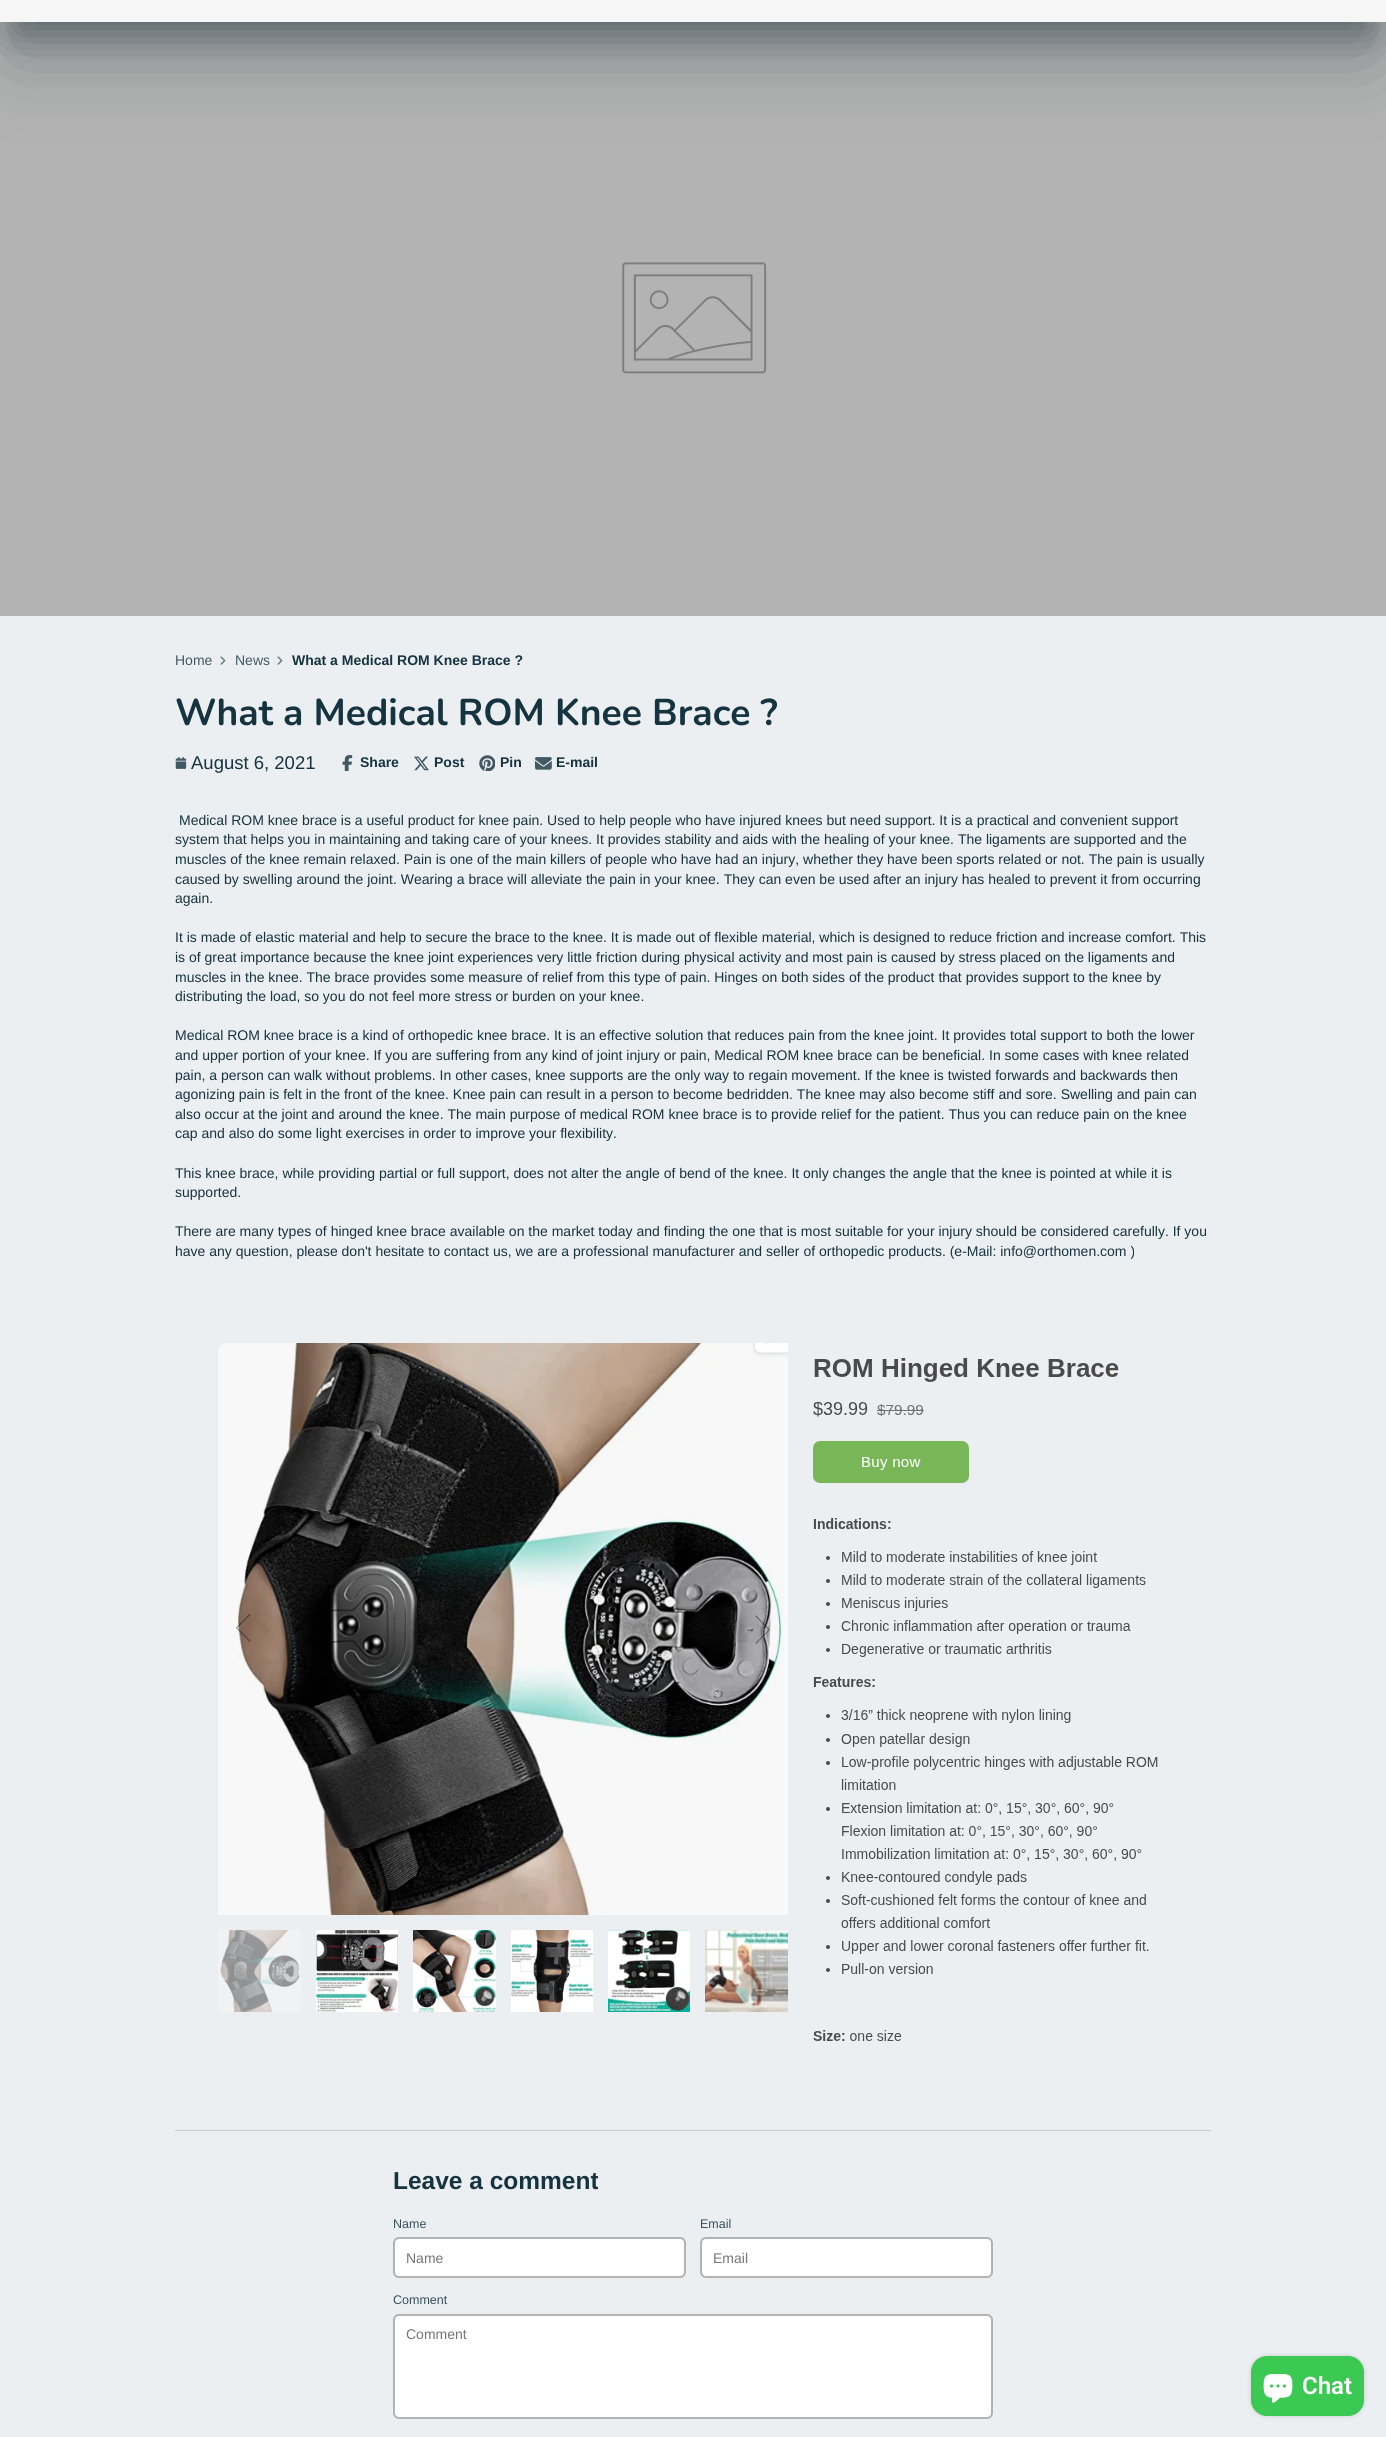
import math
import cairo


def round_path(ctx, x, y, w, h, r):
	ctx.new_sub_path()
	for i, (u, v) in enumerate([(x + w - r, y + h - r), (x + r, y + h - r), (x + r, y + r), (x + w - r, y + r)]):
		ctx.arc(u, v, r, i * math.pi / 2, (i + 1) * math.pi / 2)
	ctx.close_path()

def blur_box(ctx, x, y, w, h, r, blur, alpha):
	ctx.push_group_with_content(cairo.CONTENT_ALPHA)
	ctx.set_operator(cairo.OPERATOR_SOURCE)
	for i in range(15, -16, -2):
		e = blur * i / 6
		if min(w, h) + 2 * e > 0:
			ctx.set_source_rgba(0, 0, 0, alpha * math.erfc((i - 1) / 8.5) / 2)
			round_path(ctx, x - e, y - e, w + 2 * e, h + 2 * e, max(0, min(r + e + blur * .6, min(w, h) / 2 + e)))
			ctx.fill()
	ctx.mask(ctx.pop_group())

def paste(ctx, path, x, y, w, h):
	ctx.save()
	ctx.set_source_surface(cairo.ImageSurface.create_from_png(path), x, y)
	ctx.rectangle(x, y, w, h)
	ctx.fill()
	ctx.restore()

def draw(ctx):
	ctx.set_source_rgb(0.922, 0.937, 0.945)
	ctx.paint()
	ctx.set_source_rgb(0.702, 0.702, 0.702)
	ctx.rectangle(0, 22, 1386, 594)
	ctx.fill()
	ctx.set_source_rgb(0.059, 0.141, 0.176)
	blur_box(ctx, 14, -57, 1358, 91, 0, 19, 0.4)
	blur_box(ctx, 14, -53, 1358, 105, 0, 44, 0.3)
	ctx.set_source_rgb(0.961, 0.961, 0.961)
	ctx.rectangle(0, 0, 1386, 22)
	ctx.fill()
	paste(ctx, 'media/1.png', 622, 262, 145, 112)
	ctx.select_font_face('Liberation Sans')
	ctx.set_font_size(14)
	ctx.set_source_rgb(0.255, 0.349, 0.388)
	ctx.move_to(175, 665)
	ctx.show_text('Home')
	paste(ctx, 'media/2.png', 220, 656, 6, 9)
	ctx.move_to(235, 665)
	ctx.show_text('News')
	paste(ctx, 'media/2.png', 277, 656, 6, 9)
	ctx.select_font_face('Liberation Sans', cairo.FONT_SLANT_NORMAL, cairo.FONT_WEIGHT_BOLD)
	ctx.set_source_rgb(0.086, 0.2, 0.251)
	ctx.move_to(292, 665)
	ctx.show_text('What a Medical ROM Knee Brace ?')
	ctx.select_font_face('Nunito', cairo.FONT_SLANT_NORMAL, cairo.FONT_WEIGHT_BOLD)
	ctx.set_font_size(37.25)
	ctx.move_to(175, 725)
	ctx.show_text('What a Medical ROM Knee Brace ?')
	paste(ctx, 'media/3.png', 175, 757, 12, 12)
	ctx.select_font_face('Liberation Sans')
	ctx.set_font_size(18.5)
	ctx.move_to(191, 769)
	ctx.show_text('August 6, 2021')
	paste(ctx, 'media/4.png', 342, 755, 11, 16)
	ctx.select_font_face('Liberation Sans', cairo.FONT_SLANT_NORMAL, cairo.FONT_WEIGHT_BOLD)
	ctx.set_font_size(14)
	ctx.move_to(360, 767)
	ctx.show_text('Share')
	paste(ctx, 'media/5.png', 414, 756, 15, 15)
	ctx.move_to(434, 767)
	ctx.show_text('Post')
	paste(ctx, 'media/6.png', 479, 755, 16, 16)
	ctx.move_to(500, 767)
	ctx.show_text('Pin')
	paste(ctx, 'media/7.png', 535, 757, 17, 13)
	ctx.move_to(556, 767)
	ctx.show_text('E-mail')
	ctx.select_font_face('Liberation Sans')
	for x, y, s in [
		(179, 825, 'Medical ROM knee brace is a useful product for knee pain. Used to help people who have injured knees but need support. It is a practical and convenient support'),
		(175, 844, 'system that helps you in maintaining and taking care of your knees. It provides stability and aids with the healing of your knee. The ligaments are supported and the'),
		(175, 864, 'muscles of the knee remain relaxed. Pain is one of the main killers of people who have had an injury, whether they have been sports related or not. The pain is usually'),
		(175, 884, 'caused by swelling around the joint. Wearing a brace will alleviate the pain in your knee. They can even be used after an injury has healed to prevent it from occurring'),
		(175, 903, 'again.'),
		(175, 942, 'It is made of elastic material and help to secure the brace to the knee. It is made out of flexible material, which is designed to reduce friction and increase comfort. This'),
		(175, 962, 'is of great importance because the knee joint experiences very little friction during physical activity and most pain is caused by stress placed on the ligaments and'),
		(175, 982, 'muscles in the knee. The brace provides some measure of relief from this type of pain. Hinges on both sides of the product that provides support to the knee by'),
		(175, 1001, 'distributing the load, so you do not feel more stress or burden on your knee.'),
		(175, 1040, 'Medical ROM knee brace is a kind of orthopedic knee brace. It is an effective solution that reduces pain from the knee joint. It provides total support to both the lower'),
		(175, 1060, 'and upper portion of your knee. If you are suffering from any kind of joint injury or pain, Medical ROM knee brace can be beneficial. In some cases with knee related'),
		(175, 1080, 'pain, a person can walk without problems. In other cases, knee supports are the only way to regain movement. If the knee is twisted forwards and backwards then'),
		(175, 1099, 'agonizing pain is felt in the front of the knee. Knee pain can result in a person to become bedridden. The knee may also become stiff and sore. Swelling and pain can'),
		(175, 1119, 'also occur at the joint and around the knee. The main purpose of medical ROM knee brace is to provide relief for the patient. Thus you can reduce pain on the knee'),
		(175, 1138, 'cap and also do some light exercises in order to improve your flexibility.'),
		(175, 1178, 'This knee brace, while providing partial or full support, does not alter the angle of bend of the knee. It only changes the angle that the knee is pointed at while it is'),
		(175, 1197, 'supported.'),
		(175, 1236, 'There are many types of hinged knee brace available on the market today and finding the one that is most suitable for your injury should be considered carefully. If you'),
		(175, 1256, 'have any question, please don\'t hesitate to contact us, we are a professional manufacturer and seller of orthopedic products. (e-Mail: info@orthomen.com )'),
	]:
		ctx.move_to(x, y)
		ctx.show_text(s)
	paste(ctx, 'media/8.png', 218, 1343, 940, 698)
	ctx.set_source_rgb(0.8, 0.8, 0.8)
	ctx.rectangle(175, 2130, 1036, 1)
	ctx.fill()
	ctx.select_font_face('Liberation Sans', cairo.FONT_SLANT_NORMAL, cairo.FONT_WEIGHT_BOLD)
	ctx.set_font_size(24.5)
	ctx.set_source_rgb(0.086, 0.2, 0.251)
	ctx.move_to(393, 2189)
	ctx.show_text('Leave a comment')
	ctx.select_font_face('Liberation Sans')
	ctx.set_font_size(12.5)
	ctx.set_source_rgb(0.212, 0.31, 0.357)
	ctx.move_to(393, 2228)
	ctx.show_text('Name')
	ctx.set_source_rgb(1, 1, 1)
	round_path(ctx, 394, 2238, 291, 39, 5)
	ctx.fill_preserve()
	ctx.set_source_rgb(0.702, 0.702, 0.702)
	ctx.stroke()
	ctx.set_font_size(14)
	ctx.set_source_rgb(0.459, 0.459, 0.459)
	ctx.move_to(406, 2263)
	ctx.show_text('Name')
	ctx.set_font_size(12.5)
	ctx.set_source_rgb(0.212, 0.31, 0.357)
	ctx.move_to(700, 2228)
	ctx.show_text('Email')
	ctx.set_source_rgb(1, 1, 1)
	round_path(ctx, 701, 2238, 291, 39, 5)
	ctx.fill_preserve()
	ctx.set_source_rgb(0.702, 0.702, 0.702)
	ctx.stroke()
	ctx.set_font_size(14)
	ctx.set_source_rgb(0.459, 0.459, 0.459)
	ctx.move_to(713, 2263)
	ctx.show_text('Email')
	ctx.set_font_size(12.5)
	ctx.set_source_rgb(0.212, 0.31, 0.357)
	ctx.move_to(393, 2304)
	ctx.show_text('Comment')
	ctx.set_source_rgb(1, 1, 1)
	round_path(ctx, 394, 2315, 598, 103, 5)
	ctx.fill_preserve()
	ctx.set_source_rgb(0.702, 0.702, 0.702)
	ctx.stroke()
	ctx.set_font_size(14)
	ctx.set_source_rgb(0.459, 0.459, 0.459)
	ctx.move_to(406, 2339)
	ctx.show_text('Comment')
	ctx.set_source_rgb(0, 0, 0)
	blur_box(ctx, 1251, 2356, 113, 60, 16, 2.5, 0.15)
	ctx.set_source_rgb(0.231, 0.784, 0.325)
	round_path(ctx, 1251, 2356, 113, 60, 16)
	ctx.fill()
	paste(ctx, 'media/9.png', 1263, 2374, 30, 29)
	ctx.select_font_face('Roboto SemiBold')
	ctx.set_font_size(24)
	ctx.set_source_rgb(1, 1, 1)
	ctx.move_to(1302, 2394)
	ctx.show_text('Chat')


surface = cairo.ImageSurface(cairo.FORMAT_RGB24, 1386, 2437)
ctx = cairo.Context(surface)
options = cairo.FontOptions()
options.set_hint_metrics(cairo.HINT_METRICS_OFF)
options.set_hint_style(cairo.HINT_STYLE_NONE)
ctx.set_font_options(options)
ctx.set_miter_limit(4)
draw(ctx)
surface.write_to_png('image.png')
